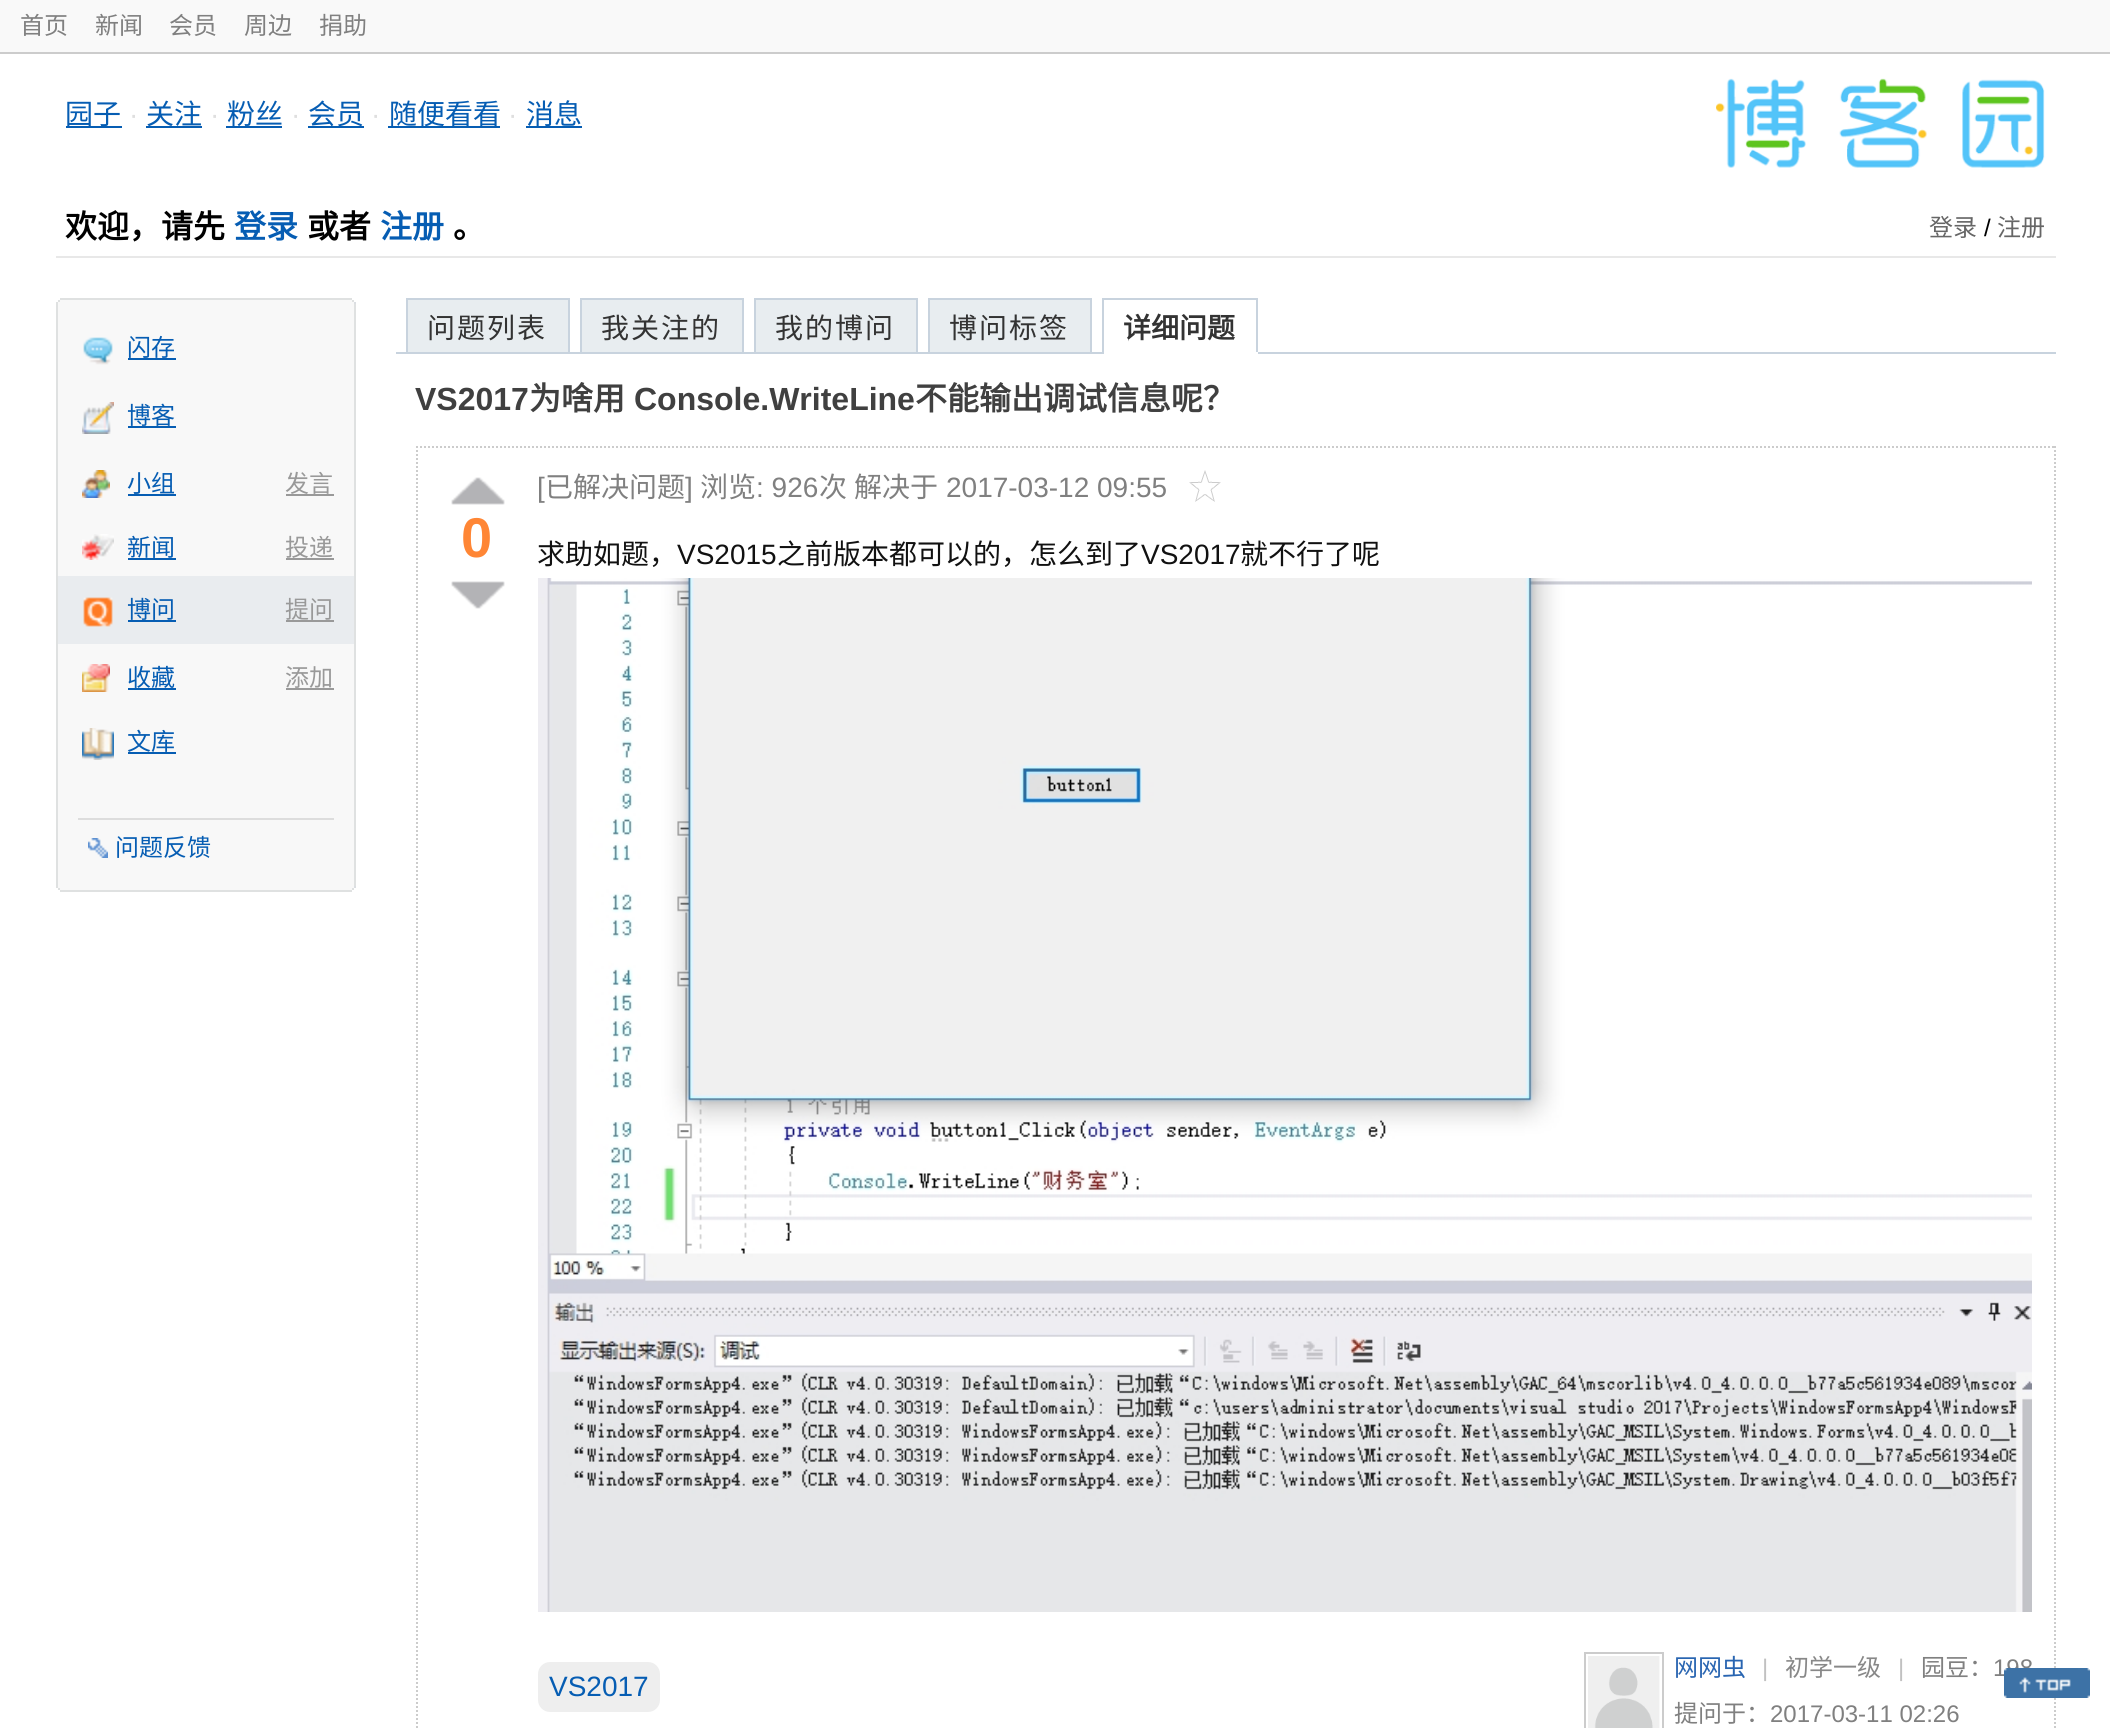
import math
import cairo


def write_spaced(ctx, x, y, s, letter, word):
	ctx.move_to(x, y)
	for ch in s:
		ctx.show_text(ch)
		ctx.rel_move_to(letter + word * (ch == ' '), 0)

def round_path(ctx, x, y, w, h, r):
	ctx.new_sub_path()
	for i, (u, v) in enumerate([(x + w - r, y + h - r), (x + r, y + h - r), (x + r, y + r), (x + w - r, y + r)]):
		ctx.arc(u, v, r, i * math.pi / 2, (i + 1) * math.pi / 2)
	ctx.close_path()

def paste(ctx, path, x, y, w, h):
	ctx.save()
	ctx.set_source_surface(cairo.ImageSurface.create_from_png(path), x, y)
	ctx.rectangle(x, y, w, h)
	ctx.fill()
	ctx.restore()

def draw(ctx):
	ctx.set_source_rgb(1, 1, 1)
	ctx.paint()
	ctx.set_source_rgb(0.973, 0.973, 0.973)
	ctx.rectangle(0, 0, 2110, 52)
	ctx.fill()
	ctx.set_source_rgb(0.8, 0.8, 0.8)
	ctx.rectangle(0, 52, 2110, 2)
	ctx.fill()
	ctx.select_font_face('Noto Sans CJK SC')
	ctx.set_font_size(24)
	ctx.set_source_rgb(0.502, 0.502, 0.502)
	for x, y, s in [
		(20, 34, '首页'),
		(95, 34, '新闻'),
		(169, 34, '会员'),
		(244, 34, '周边'),
		(319, 34, '捐助'),
	]:
		ctx.move_to(x, y)
		ctx.show_text(s)
	ctx.set_source_rgb(0.91, 0.91, 0.91)
	ctx.rectangle(56, 256, 2000, 2)
	ctx.fill()
	ctx.set_source_rgb(0.027, 0.365, 0.702)
	ctx.rectangle(66, 126, 56, 2)
	ctx.fill()
	ctx.set_font_size(28)
	ctx.move_to(65, 124)
	ctx.show_text('园子')
	ctx.select_font_face('Liberation Sans')
	ctx.set_source_rgb(0.875, 0.875, 0.875)
	ctx.move_to(129, 124)
	ctx.show_text('·')
	ctx.set_source_rgb(0.027, 0.365, 0.702)
	ctx.rectangle(146, 126, 56, 2)
	ctx.fill()
	ctx.select_font_face('Noto Sans CJK SC')
	ctx.move_to(146, 124)
	ctx.show_text('关注')
	ctx.select_font_face('Liberation Sans')
	ctx.set_source_rgb(0.875, 0.875, 0.875)
	ctx.move_to(210, 124)
	ctx.show_text('·')
	ctx.set_source_rgb(0.027, 0.365, 0.702)
	ctx.rectangle(226, 126, 56, 2)
	ctx.fill()
	ctx.select_font_face('Noto Sans CJK SC')
	ctx.move_to(227, 124)
	ctx.show_text('粉丝')
	ctx.select_font_face('Liberation Sans')
	ctx.set_source_rgb(0.875, 0.875, 0.875)
	ctx.move_to(291, 124)
	ctx.show_text('·')
	ctx.set_source_rgb(0.027, 0.365, 0.702)
	ctx.rectangle(308, 126, 56, 2)
	ctx.fill()
	ctx.select_font_face('Noto Sans CJK SC')
	ctx.move_to(308, 124)
	ctx.show_text('会员')
	ctx.select_font_face('Liberation Sans')
	ctx.set_source_rgb(0.875, 0.875, 0.875)
	ctx.move_to(371, 124)
	ctx.show_text('·')
	ctx.set_source_rgb(0.027, 0.365, 0.702)
	ctx.rectangle(388, 126, 112, 2)
	ctx.fill()
	ctx.select_font_face('Noto Sans CJK SC')
	ctx.move_to(389, 124)
	ctx.show_text('随便看看')
	ctx.select_font_face('Liberation Sans')
	ctx.set_source_rgb(0.875, 0.875, 0.875)
	ctx.move_to(508, 124)
	ctx.show_text('·')
	ctx.set_source_rgb(0.027, 0.365, 0.702)
	ctx.rectangle(526, 126, 56, 2)
	ctx.fill()
	ctx.select_font_face('Noto Sans CJK SC')
	ctx.move_to(526, 124)
	ctx.show_text('消息')
	paste(ctx, 'media/1.png', 1716, 78, 329, 90)
	ctx.select_font_face('Noto Sans CJK SC', cairo.FONT_SLANT_NORMAL, cairo.FONT_WEIGHT_BOLD)
	ctx.set_font_size(32)
	ctx.set_source_rgb(0, 0, 0)
	ctx.move_to(65, 238)
	ctx.show_text('欢迎，请先')
	ctx.set_source_rgb(0.027, 0.365, 0.702)
	ctx.move_to(234, 238)
	ctx.show_text('登录')
	ctx.set_source_rgb(0, 0, 0)
	ctx.move_to(307, 238)
	ctx.show_text('或者')
	ctx.set_source_rgb(0.027, 0.365, 0.702)
	ctx.move_to(380, 238)
	ctx.show_text('注册')
	ctx.set_source_rgb(0, 0, 0)
	ctx.move_to(453, 238)
	ctx.show_text('。')
	ctx.select_font_face('Noto Sans CJK SC')
	ctx.set_font_size(24)
	ctx.set_source_rgb(0.4, 0.4, 0.4)
	ctx.move_to(1929, 236)
	ctx.show_text('登录')
	ctx.select_font_face('Liberation Sans')
	ctx.set_source_rgb(0, 0, 0)
	ctx.move_to(1984, 236)
	ctx.show_text('/')
	ctx.select_font_face('Noto Sans CJK SC')
	ctx.set_source_rgb(0.4, 0.4, 0.4)
	ctx.move_to(1997, 236)
	ctx.show_text('注册')
	ctx.set_source_rgb(0.875, 0.882, 0.882)
	ctx.rectangle(60, 298, 292, 2)
	ctx.fill()
	ctx.set_source_rgb(0.969, 0.969, 0.969)
	ctx.rectangle(58, 300, 296, 2)
	ctx.fill()
	ctx.set_source_rgb(0.875, 0.882, 0.882)
	ctx.rectangle(352, 300, 2, 2)
	ctx.rectangle(58, 300, 2, 2)
	ctx.fill()
	ctx.set_source_rgb(0.969, 0.969, 0.969)
	ctx.rectangle(56, 302, 300, 2)
	ctx.fill()
	ctx.set_source_rgb(0.859, 0.871, 0.886)
	ctx.rectangle(354, 302, 2, 2)
	ctx.fill()
	ctx.set_source_rgb(0.875, 0.882, 0.882)
	ctx.rectangle(56, 302, 2, 584)
	ctx.fill()
	ctx.set_source_rgb(0.969, 0.969, 0.969)
	ctx.rectangle(58, 304, 296, 582)
	ctx.fill()
	ctx.set_source_rgb(0.875, 0.882, 0.882)
	ctx.rectangle(354, 304, 2, 582)
	ctx.fill()
	paste(ctx, 'media/2.png', 83, 337, 30, 28)
	ctx.set_source_rgb(0.027, 0.365, 0.702)
	ctx.move_to(127, 356)
	ctx.show_text('闪存')
	ctx.rectangle(128, 358, 48, 2)
	ctx.fill()
	paste(ctx, 'media/3.png', 82, 402, 32, 32)
	ctx.move_to(127, 424)
	ctx.show_text('博客')
	ctx.rectangle(128, 426, 48, 2)
	ctx.fill()
	paste(ctx, 'media/4.png', 82, 470, 28, 28)
	ctx.move_to(127, 492)
	ctx.show_text('小组')
	ctx.rectangle(128, 494, 48, 2)
	ctx.fill()
	ctx.set_source_rgb(0.6, 0.6, 0.6)
	ctx.move_to(285, 492)
	ctx.show_text('发言')
	ctx.rectangle(286, 494, 48, 2)
	ctx.fill()
	paste(ctx, 'media/5.png', 82, 534, 32, 26)
	ctx.set_source_rgb(0.027, 0.365, 0.702)
	ctx.move_to(127, 556)
	ctx.show_text('新闻')
	ctx.rectangle(128, 558, 48, 2)
	ctx.fill()
	ctx.set_source_rgb(0.6, 0.6, 0.6)
	ctx.move_to(285, 556)
	ctx.show_text('投递')
	ctx.rectangle(286, 558, 48, 2)
	ctx.fill()
	ctx.set_source_rgb(0.914, 0.925, 0.937)
	ctx.rectangle(58, 576, 296, 68)
	ctx.fill()
	paste(ctx, 'media/6.png', 83, 597, 30, 30)
	ctx.set_source_rgb(0.027, 0.365, 0.702)
	ctx.move_to(127, 618)
	ctx.show_text('博问')
	ctx.rectangle(128, 620, 48, 2)
	ctx.fill()
	ctx.set_source_rgb(0.6, 0.6, 0.6)
	ctx.move_to(285, 618)
	ctx.show_text('提问')
	ctx.rectangle(286, 620, 48, 2)
	ctx.fill()
	paste(ctx, 'media/7.png', 82, 664, 28, 28)
	ctx.set_source_rgb(0.027, 0.365, 0.702)
	ctx.move_to(127, 686)
	ctx.show_text('收藏')
	ctx.rectangle(128, 688, 48, 2)
	ctx.fill()
	ctx.set_source_rgb(0.6, 0.6, 0.6)
	ctx.move_to(285, 686)
	ctx.show_text('添加')
	ctx.rectangle(286, 688, 48, 2)
	ctx.fill()
	paste(ctx, 'media/8.png', 82, 728, 32, 32)
	ctx.set_source_rgb(0.027, 0.365, 0.702)
	ctx.move_to(127, 750)
	ctx.show_text('文库')
	ctx.rectangle(128, 752, 48, 2)
	ctx.fill()
	ctx.set_source_rgb(0.867, 0.867, 0.867)
	ctx.rectangle(78, 818, 256, 2)
	ctx.fill()
	paste(ctx, 'media/9.png', 88, 838, 20, 20)
	ctx.set_source_rgb(0.027, 0.365, 0.702)
	ctx.move_to(115, 856)
	ctx.show_text('问题反馈')
	ctx.set_source_rgb(0.969, 0.969, 0.969)
	ctx.rectangle(56, 886, 300, 2)
	ctx.fill()
	ctx.set_source_rgb(0.859, 0.871, 0.886)
	ctx.rectangle(354, 886, 2, 2)
	ctx.fill()
	ctx.set_source_rgb(0.875, 0.882, 0.882)
	ctx.rectangle(56, 886, 2, 2)
	ctx.fill()
	ctx.set_source_rgb(0.969, 0.969, 0.969)
	ctx.rectangle(58, 888, 296, 2)
	ctx.fill()
	ctx.set_source_rgb(0.875, 0.882, 0.882)
	ctx.rectangle(352, 888, 2, 2)
	ctx.rectangle(58, 888, 2, 2)
	ctx.rectangle(60, 890, 292, 2)
	ctx.fill()
	ctx.set_source_rgb(0.784, 0.827, 0.871)
	ctx.rectangle(396, 352, 1660, 2)
	ctx.fill()
	ctx.set_source_rgb(0.91, 0.929, 0.941)
	ctx.rectangle(407, 299, 162, 54)
	ctx.fill_preserve()
	ctx.set_source_rgb(0.784, 0.827, 0.871)
	ctx.stroke()
	ctx.set_font_size(28)
	ctx.set_source_rgb(0.2, 0.2, 0.2)
	write_spaced(ctx, 427, 338, '问题列表', 2, 0)
	ctx.set_source_rgb(0.91, 0.929, 0.941)
	ctx.rectangle(581, 299, 162, 54)
	ctx.fill_preserve()
	ctx.set_source_rgb(0.784, 0.827, 0.871)
	ctx.stroke()
	ctx.set_source_rgb(0.2, 0.2, 0.2)
	write_spaced(ctx, 601, 338, '我关注的', 2, 0)
	ctx.set_source_rgb(0.91, 0.929, 0.941)
	ctx.rectangle(755, 299, 162, 54)
	ctx.fill_preserve()
	ctx.set_source_rgb(0.784, 0.827, 0.871)
	ctx.stroke()
	ctx.set_source_rgb(0.2, 0.2, 0.2)
	write_spaced(ctx, 775, 338, '我的博问', 2, 0)
	ctx.set_source_rgb(0.91, 0.929, 0.941)
	ctx.rectangle(929, 299, 162, 54)
	ctx.fill_preserve()
	ctx.set_source_rgb(0.784, 0.827, 0.871)
	ctx.stroke()
	ctx.set_source_rgb(0.2, 0.2, 0.2)
	write_spaced(ctx, 949, 338, '博问标签', 2, 0)
	ctx.set_source_rgb(0.784, 0.827, 0.871)
	ctx.rectangle(1102, 298, 156, 2)
	ctx.rectangle(1256, 298, 2, 56)
	ctx.fill()
	ctx.set_source_rgb(1, 1, 1)
	ctx.rectangle(1102, 352, 156, 2)
	ctx.fill()
	ctx.set_source_rgb(0.784, 0.827, 0.871)
	ctx.rectangle(1102, 298, 2, 56)
	ctx.fill()
	ctx.select_font_face('Noto Sans CJK SC', cairo.FONT_SLANT_NORMAL, cairo.FONT_WEIGHT_BOLD)
	ctx.set_source_rgb(0.2, 0.2, 0.2)
	ctx.move_to(1123, 338)
	ctx.show_text('详细问题')
	ctx.select_font_face('Liberation Sans', cairo.FONT_SLANT_NORMAL, cairo.FONT_WEIGHT_BOLD)
	ctx.set_font_size(32)
	ctx.set_source_rgb(0.251, 0.251, 0.251)
	ctx.move_to(415, 410)
	ctx.show_text('VS2017')
	ctx.select_font_face('Noto Sans CJK SC', cairo.FONT_SLANT_NORMAL, cairo.FONT_WEIGHT_BOLD)
	ctx.move_to(529, 410)
	ctx.show_text('为啥用')
	ctx.select_font_face('Liberation Sans', cairo.FONT_SLANT_NORMAL, cairo.FONT_WEIGHT_BOLD)
	ctx.move_to(634, 410)
	ctx.show_text('Console.WriteLine')
	ctx.select_font_face('Noto Sans CJK SC', cairo.FONT_SLANT_NORMAL, cairo.FONT_WEIGHT_BOLD)
	ctx.move_to(915, 410)
	ctx.show_text('不能输出调试信息呢？')
	ctx.new_path()
	ctx.move_to(416, 447)
	ctx.line_to(2056, 447)
	ctx.set_source_rgb(0.8, 0.8, 0.8)
	ctx.set_dash([2, 2])
	ctx.stroke()
	ctx.new_path()
	ctx.move_to(2055, 446)
	ctx.line_to(2055, 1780)
	ctx.stroke()
	ctx.new_path()
	ctx.move_to(417, 446)
	ctx.line_to(417, 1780)
	ctx.stroke()
	paste(ctx, 'media/10.png', 451, 477, 54, 28)
	ctx.select_font_face('Liberation Sans', cairo.FONT_SLANT_NORMAL, cairo.FONT_WEIGHT_BOLD)
	ctx.set_font_size(56)
	ctx.set_source_rgb(1, 0.525, 0.208)
	ctx.move_to(461, 557)
	ctx.show_text('0')
	paste(ctx, 'media/11.png', 451, 581, 54, 28)
	ctx.select_font_face('Liberation Sans')
	ctx.set_font_size(28)
	ctx.set_source_rgb(0.502, 0.502, 0.502)
	ctx.move_to(537, 497)
	ctx.show_text('[')
	ctx.select_font_face('Noto Sans CJK SC')
	ctx.move_to(545, 497)
	ctx.show_text('已解决问题')
	ctx.select_font_face('Liberation Sans')
	ctx.move_to(685, 497)
	ctx.show_text(']')
	ctx.select_font_face('Noto Sans CJK SC')
	ctx.move_to(700, 497)
	ctx.show_text('浏览')
	ctx.select_font_face('Liberation Sans')
	ctx.move_to(756, 497)
	ctx.show_text(': 926')
	ctx.select_font_face('Noto Sans CJK SC')
	ctx.move_to(819, 497)
	ctx.show_text('次')
	ctx.move_to(854, 497)
	ctx.show_text('解决于')
	ctx.select_font_face('Liberation Sans')
	ctx.move_to(946, 497)
	ctx.show_text('2017-03-12 09:55')
	paste(ctx, 'media/12.png', 1189, 470, 32, 32)
	ctx.select_font_face('Noto Sans CJK SC')
	ctx.set_source_rgb(0.067, 0.067, 0.067)
	ctx.move_to(537, 564)
	ctx.show_text('求助如题，')
	ctx.select_font_face('Liberation Sans')
	ctx.move_to(677, 564)
	ctx.show_text('VS2015')
	ctx.select_font_face('Noto Sans CJK SC')
	ctx.move_to(777, 564)
	ctx.show_text('之前版本都可以的，怎么到了')
	ctx.select_font_face('Liberation Sans')
	ctx.move_to(1141, 564)
	ctx.show_text('VS2017')
	ctx.select_font_face('Noto Sans CJK SC')
	ctx.move_to(1240, 564)
	ctx.show_text('就不行了呢')
	paste(ctx, 'media/13.png', 538, 578, 1494, 1034)
	ctx.set_source_rgb(0.933, 0.933, 0.933)
	round_path(ctx, 538, 1662, 122, 50, 12)
	ctx.fill()
	ctx.select_font_face('Liberation Sans')
	ctx.set_source_rgb(0.027, 0.365, 0.702)
	ctx.move_to(549, 1696)
	ctx.show_text('VS2017')
	ctx.rectangle(1585, 1653, 78, 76)
	ctx.set_source_rgb(0.8, 0.8, 0.8)
	ctx.set_dash([])
	ctx.stroke()
	paste(ctx, 'media/14.png', 1588, 1656, 72, 72)
	ctx.select_font_face('Noto Sans CJK SC')
	ctx.set_font_size(24)
	ctx.set_source_rgb(0.161, 0.396, 0.694)
	ctx.move_to(1674, 1676)
	ctx.show_text('网网虫')
	ctx.select_font_face('Liberation Sans')
	ctx.set_source_rgb(0.757, 0.757, 0.757)
	ctx.move_to(1762, 1676)
	ctx.show_text('|')
	ctx.select_font_face('Noto Sans CJK SC')
	ctx.set_source_rgb(0.533, 0.533, 0.533)
	ctx.move_to(1785, 1676)
	ctx.show_text('初学一级')
	ctx.select_font_face('Liberation Sans')
	ctx.set_source_rgb(0.757, 0.757, 0.757)
	ctx.move_to(1898, 1676)
	ctx.show_text('|')
	ctx.select_font_face('Noto Sans CJK SC')
	ctx.set_source_rgb(0.502, 0.502, 0.502)
	ctx.move_to(1921, 1676)
	ctx.show_text('园豆：')
	ctx.select_font_face('Liberation Sans')
	ctx.move_to(1993, 1676)
	ctx.show_text('198')
	ctx.select_font_face('Noto Sans CJK SC')
	ctx.move_to(1674, 1722)
	ctx.show_text('提问于：')
	ctx.select_font_face('Liberation Sans')
	ctx.move_to(1770, 1722)
	ctx.show_text('2017-03-11 02:26')
	paste(ctx, 'media/15.png', 2004, 1668, 86, 30)


surface = cairo.ImageSurface(cairo.FORMAT_RGB24, 2110, 1728)
ctx = cairo.Context(surface)
options = cairo.FontOptions()
options.set_hint_metrics(cairo.HINT_METRICS_OFF)
options.set_hint_style(cairo.HINT_STYLE_NONE)
ctx.set_font_options(options)
ctx.set_miter_limit(4)
draw(ctx)
surface.write_to_png('image.png')
